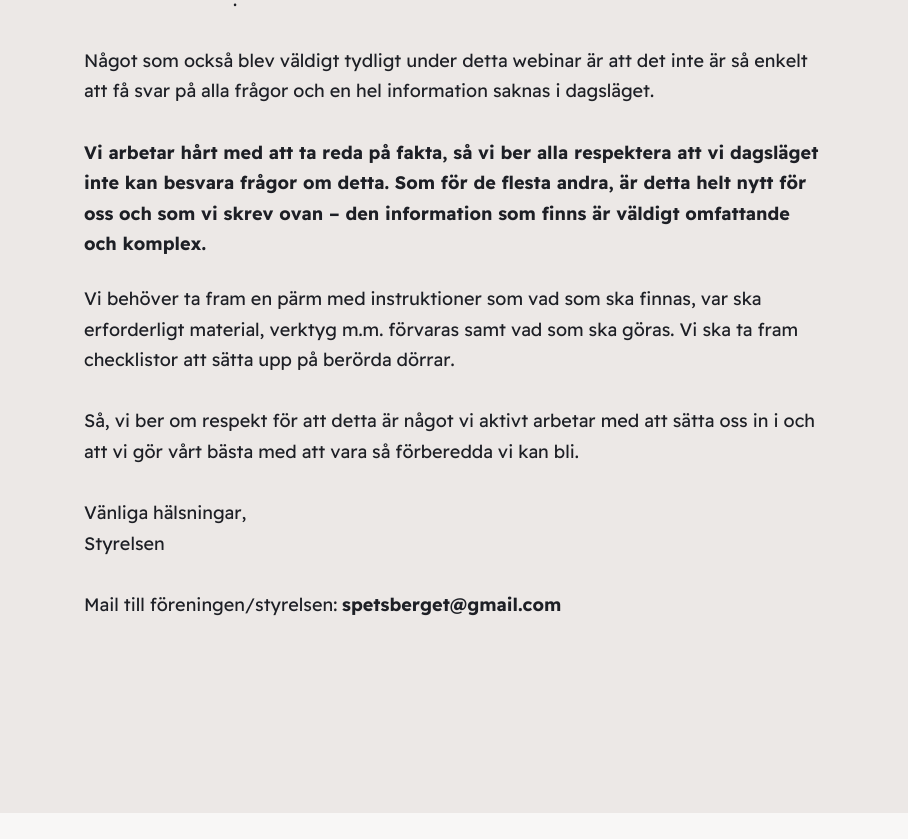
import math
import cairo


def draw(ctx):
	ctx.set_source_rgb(0.922, 0.91, 0.902)
	ctx.paint()
	ctx.select_font_face('Readex Pro')
	ctx.set_font_size(18)
	ctx.set_source_rgb(0.114, 0.122, 0.145)
	for x, y, s in [
		(233, 6, '.'),
		(84, 67, 'Något som också blev väldigt tydligt under detta webinar är att det inte är så enkelt'),
		(84, 97, 'att få svar på alla frågor och en hel information saknas i dagsläget.'),
	]:
		ctx.move_to(x, y)
		ctx.show_text(s)
	ctx.select_font_face('Readex Pro', cairo.FONT_SLANT_NORMAL, cairo.FONT_WEIGHT_BOLD)
	for x, y, s in [
		(84, 159, 'Vi arbetar hårt med att ta reda på fakta, så vi ber alla respektera att vi dagsläget'),
		(84, 189, 'inte kan besvara frågor om detta. Som för de flesta andra, är detta helt nytt för'),
		(84, 220, 'oss och som vi skrev ovan – den information som finns är väldigt omfattande'),
		(84, 250, 'och komplex.'),
	]:
		ctx.move_to(x, y)
		ctx.show_text(s)
	ctx.select_font_face('Readex Pro')
	for x, y, s in [
		(84, 305, 'Vi behöver ta fram en pärm med instruktioner som vad som ska finnas, var ska'),
		(84, 336, 'erforderligt material, verktyg m.m. förvaras samt vad som ska göras. Vi ska ta fram'),
		(84, 366, 'checklistor att sätta upp på berörda dörrar.'),
		(84, 427, 'Så, vi ber om respekt för att detta är något vi aktivt arbetar med att sätta oss in i och'),
		(84, 458, 'att vi gör vårt bästa med att vara så förberedda vi kan bli.'),
		(84, 519, 'Vänliga hälsningar,'),
		(84, 550, 'Styrelsen'),
		(84, 611, 'Mail till föreningen/styrelsen:'),
	]:
		ctx.move_to(x, y)
		ctx.show_text(s)
	ctx.select_font_face('Readex Pro', cairo.FONT_SLANT_NORMAL, cairo.FONT_WEIGHT_BOLD)
	ctx.move_to(342, 611)
	ctx.show_text('spetsberget@gmail.com')
	ctx.set_source_rgb(0.969, 0.965, 0.961)
	ctx.rectangle(0, 813, 908, 26)
	ctx.fill()


surface = cairo.ImageSurface(cairo.FORMAT_RGB24, 908, 839)
ctx = cairo.Context(surface)
options = cairo.FontOptions()
options.set_hint_metrics(cairo.HINT_METRICS_OFF)
options.set_hint_style(cairo.HINT_STYLE_NONE)
ctx.set_font_options(options)
ctx.set_miter_limit(4)
draw(ctx)
surface.write_to_png('image.png')
